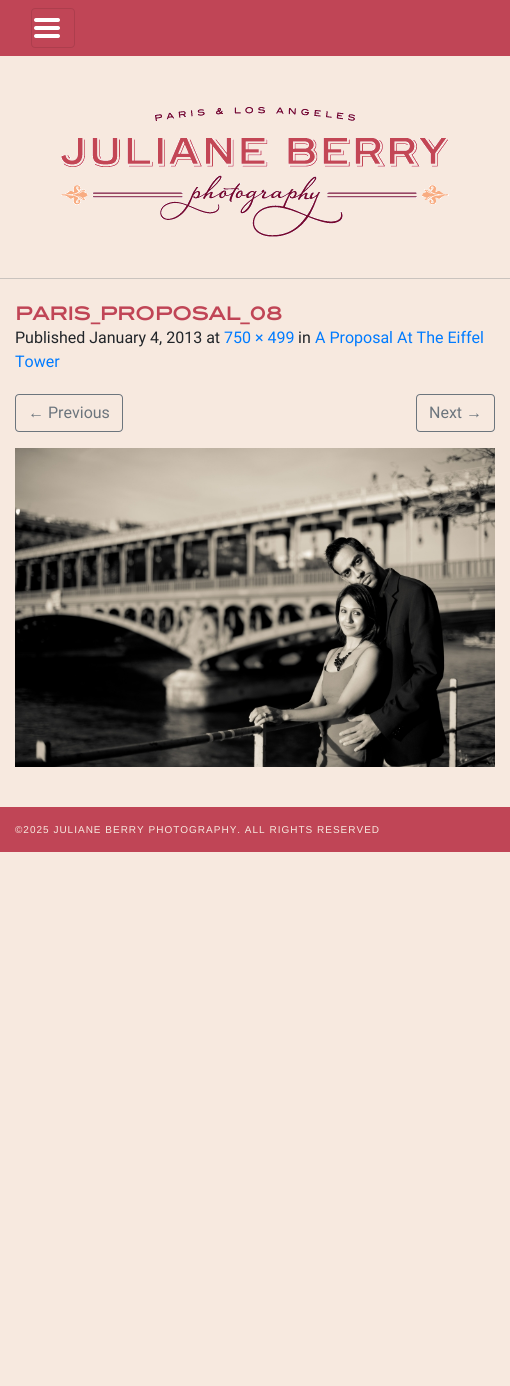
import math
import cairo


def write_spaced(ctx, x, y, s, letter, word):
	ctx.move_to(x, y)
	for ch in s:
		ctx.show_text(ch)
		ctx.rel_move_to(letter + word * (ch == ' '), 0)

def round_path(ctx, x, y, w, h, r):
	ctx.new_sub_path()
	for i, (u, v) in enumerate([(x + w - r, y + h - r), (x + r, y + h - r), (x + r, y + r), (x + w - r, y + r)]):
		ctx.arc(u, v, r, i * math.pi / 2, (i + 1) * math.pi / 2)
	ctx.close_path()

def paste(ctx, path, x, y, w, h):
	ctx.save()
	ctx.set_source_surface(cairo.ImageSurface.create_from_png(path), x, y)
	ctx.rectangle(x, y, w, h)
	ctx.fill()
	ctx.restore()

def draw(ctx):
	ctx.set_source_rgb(0.965, 0.914, 0.875)
	ctx.paint()
	ctx.set_source_rgb(0.753, 0.271, 0.337)
	ctx.rectangle(0, 0, 510, 56)
	ctx.fill()
	round_path(ctx, 31.5, 8.5, 43, 39, 3.5)
	ctx.set_source_rgb(0.678, 0.243, 0.302)
	ctx.set_line_width(1)
	ctx.stroke()
	ctx.new_path()
	ctx.move_to(36, 20)
	ctx.line_to(58, 20)
	ctx.move_to(36, 28)
	ctx.line_to(58, 28)
	ctx.move_to(36, 36)
	ctx.line_to(58, 36)
	ctx.set_source_rgb(1, 1, 1)
	ctx.set_line_width(4)
	ctx.set_line_cap(cairo.LINE_CAP_ROUND)
	ctx.stroke()
	paste(ctx, 'media/1.png', 61, 107, 388, 130)
	ctx.set_source_rgb(0.792, 0.765, 0.745)
	ctx.rectangle(0, 278, 510, 1)
	ctx.fill()
	ctx.select_font_face('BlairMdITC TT', cairo.FONT_SLANT_NORMAL, cairo.FONT_WEIGHT_BOLD)
	ctx.set_font_size(18)
	ctx.set_source_rgb(0.753, 0.271, 0.337)
	ctx.move_to(15, 320)
	ctx.show_text('PARIS_PROPOSAL_08')
	ctx.select_font_face('Roboto')
	ctx.set_font_size(16)
	ctx.set_source_rgb(0.129, 0.145, 0.161)
	ctx.move_to(15, 343)
	ctx.show_text('Published January 4, 2013 at')
	ctx.set_source_rgb(0, 0.482, 1)
	ctx.move_to(224, 343)
	ctx.show_text('750 × 499')
	ctx.set_source_rgb(0.129, 0.145, 0.161)
	ctx.move_to(298, 343)
	ctx.show_text('in')
	ctx.set_source_rgb(0, 0.482, 1)
	ctx.move_to(315, 343)
	ctx.show_text('A Proposal At The Eiffel')
	ctx.move_to(15, 367)
	ctx.show_text('Tower')
	round_path(ctx, 15.5, 394.5, 107, 37, 3.5)
	ctx.set_source_rgb(0.424, 0.459, 0.49)
	ctx.set_line_width(1)
	ctx.set_line_cap(cairo.LINE_CAP_BUTT)
	ctx.stroke()
	ctx.select_font_face('Liberation Sans')
	ctx.move_to(28, 418)
	ctx.show_text('←')
	ctx.select_font_face('Roboto')
	ctx.move_to(48, 418)
	ctx.show_text('Previous')
	round_path(ctx, 416.5, 394.5, 78, 37, 3.5)
	ctx.stroke()
	ctx.move_to(429, 418)
	ctx.show_text('Next')
	ctx.select_font_face('Liberation Sans')
	ctx.move_to(466, 418)
	ctx.show_text('→')
	paste(ctx, 'media/2.png', 15, 448, 480, 319)
	ctx.set_source_rgb(0.753, 0.271, 0.337)
	ctx.rectangle(0, 807, 510, 45)
	ctx.fill()
	ctx.set_font_size(10)
	ctx.set_source_rgb(0.965, 0.914, 0.875)
	write_spaced(ctx, 15, 833, '©2025 JULIANE BERRY PHOTOGRAPHY. ALL RIGHTS RESERVED', 1, 0)


surface = cairo.ImageSurface(cairo.FORMAT_RGB24, 510, 1386)
ctx = cairo.Context(surface)
options = cairo.FontOptions()
options.set_hint_metrics(cairo.HINT_METRICS_OFF)
options.set_hint_style(cairo.HINT_STYLE_NONE)
ctx.set_font_options(options)
ctx.set_miter_limit(4)
draw(ctx)
surface.write_to_png('image.png')
